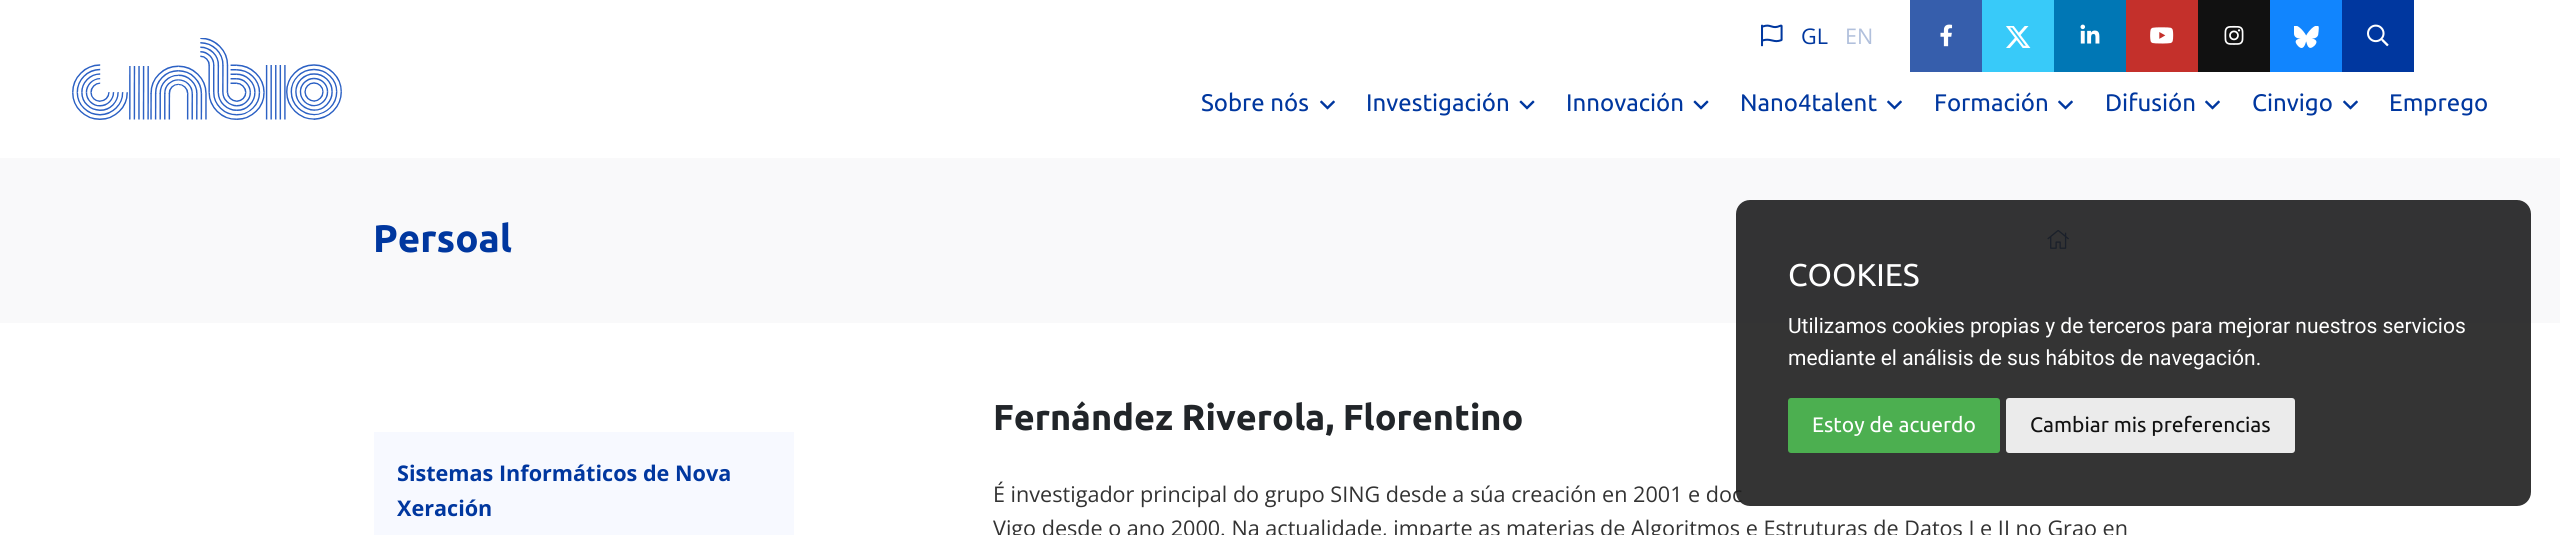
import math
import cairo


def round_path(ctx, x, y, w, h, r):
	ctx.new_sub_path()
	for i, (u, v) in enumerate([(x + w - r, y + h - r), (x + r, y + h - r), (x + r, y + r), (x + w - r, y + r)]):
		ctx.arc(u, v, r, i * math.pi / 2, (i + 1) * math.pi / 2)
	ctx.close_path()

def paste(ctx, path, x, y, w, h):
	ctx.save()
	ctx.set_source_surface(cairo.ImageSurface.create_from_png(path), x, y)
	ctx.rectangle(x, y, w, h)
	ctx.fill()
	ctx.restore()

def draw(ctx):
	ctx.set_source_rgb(1, 1, 1)
	ctx.paint()
	paste(ctx, 'media/1.png', 1761, 24, 22, 23)
	ctx.select_font_face('Open Sans')
	ctx.set_font_size(21.6)
	ctx.set_source_rgb(0, 0.216, 0.624)
	ctx.move_to(1801, 44)
	ctx.show_text('GL')
	ctx.set_source_rgb(0.694, 0.753, 0.863)
	ctx.move_to(1845, 44)
	ctx.show_text('EN')
	ctx.set_source_rgb(0.212, 0.369, 0.675)
	ctx.rectangle(1910, 0, 72, 72)
	ctx.fill()
	paste(ctx, 'media/2.png', 1940, 24, 13, 23)
	ctx.set_source_rgb(0.22, 0.792, 0.973)
	ctx.rectangle(1982, 0, 72, 72)
	ctx.fill()
	paste(ctx, 'media/3.png', 2006, 26, 25, 22)
	ctx.set_source_rgb(0, 0.467, 0.71)
	ctx.rectangle(2054, 0, 72, 72)
	ctx.fill()
	paste(ctx, 'media/4.png', 2080, 24, 20, 20)
	ctx.set_source_rgb(0.769, 0.188, 0.169)
	ctx.rectangle(2126, 0, 72, 72)
	ctx.fill()
	paste(ctx, 'media/5.png', 2150, 27, 24, 17)
	ctx.set_source_rgb(0.067, 0.067, 0.067)
	ctx.rectangle(2198, 0, 72, 72)
	ctx.fill()
	paste(ctx, 'media/6.png', 2224, 25, 20, 20)
	ctx.set_source_rgb(0.067, 0.522, 0.996)
	ctx.rectangle(2270, 0, 72, 72)
	ctx.fill()
	paste(ctx, 'media/7.png', 2294, 26, 25, 22)
	ctx.set_source_rgb(0, 0.216, 0.624)
	ctx.rectangle(2342, 0, 72, 72)
	ctx.fill()
	paste(ctx, 'media/8.png', 2367, 24, 22, 23)
	paste(ctx, 'media/9.png', 72, 38, 270, 82)
	ctx.select_font_face('Ubuntu')
	ctx.set_font_size(24)
	ctx.move_to(1201, 111)
	ctx.show_text('Sobre nós')
	paste(ctx, 'media/10.png', 1320, 100, 15, 10)
	ctx.move_to(1366, 111)
	ctx.show_text('Investigación')
	paste(ctx, 'media/11.png', 1519, 100, 16, 10)
	ctx.move_to(1566, 111)
	ctx.show_text('Innovación')
	paste(ctx, 'media/11.png', 1693, 100, 16, 10)
	ctx.move_to(1740, 111)
	ctx.show_text('Nano4talent')
	paste(ctx, 'media/10.png', 1887, 100, 15, 10)
	ctx.move_to(1934, 111)
	ctx.show_text('Formación')
	paste(ctx, 'media/10.png', 2058, 100, 15, 10)
	ctx.move_to(2105, 111)
	ctx.show_text('Difusión')
	paste(ctx, 'media/10.png', 2205, 100, 15, 10)
	ctx.move_to(2252, 111)
	ctx.show_text('Cinvigo')
	paste(ctx, 'media/10.png', 2343, 100, 15, 10)
	ctx.move_to(2389, 111)
	ctx.show_text('Emprego')
	ctx.set_source_rgb(0.973, 0.976, 0.98)
	ctx.rectangle(0, 158, 2560, 165)
	ctx.fill()
	ctx.select_font_face('Ubuntu', cairo.FONT_SLANT_NORMAL, cairo.FONT_WEIGHT_BOLD)
	ctx.set_font_size(38.5)
	ctx.set_source_rgb(0, 0.216, 0.624)
	ctx.move_to(373, 252)
	ctx.show_text('Persoal')
	paste(ctx, 'media/12.png', 2047, 230, 22, 19)
	ctx.set_source_rgb(0.965, 0.976, 1)
	ctx.rectangle(374, 432, 420, 103)
	ctx.fill()
	ctx.select_font_face('Open Sans', cairo.FONT_SLANT_NORMAL, cairo.FONT_WEIGHT_BOLD)
	ctx.set_font_size(21.6)
	ctx.set_source_rgb(0, 0.216, 0.624)
	ctx.move_to(397, 481)
	ctx.show_text('Sistemas Informáticos de Nova')
	ctx.move_to(397, 516)
	ctx.show_text('Xeración')
	ctx.select_font_face('Ubuntu', cairo.FONT_SLANT_NORMAL, cairo.FONT_WEIGHT_BOLD)
	ctx.set_font_size(36)
	ctx.set_source_rgb(0.129, 0.145, 0.161)
	ctx.move_to(993, 430)
	ctx.show_text('Fernández Riverola, Florentino')
	ctx.select_font_face('Open Sans')
	ctx.set_font_size(21.6)
	ctx.set_source_rgb(0.2, 0.2, 0.2)
	ctx.move_to(993, 502)
	ctx.show_text('É investigador principal do grupo SING desde a súa creación en 2001 e doc')
	ctx.move_to(993, 536)
	ctx.show_text('Vigo desde o ano 2000. Na actualidade, imparte as materias de Algoritmos e Estruturas de Datos I e II no Grao en')
	ctx.set_source_rgba(0.118, 0.118, 0.118, 0.9)
	round_path(ctx, 1736, 200, 795, 306, 14)
	ctx.fill()
	ctx.select_font_face('Ubuntu')
	ctx.set_font_size(31.5)
	ctx.set_source_rgb(1, 1, 1)
	ctx.move_to(1788, 286)
	ctx.show_text('COOKIES')
	ctx.select_font_face('Roboto')
	ctx.set_font_size(21)
	ctx.move_to(1788, 333)
	ctx.show_text('Utilizamos cookies propias y de terceros para mejorar nuestros servicios')
	ctx.move_to(1788, 365)
	ctx.show_text('mediante el análisis de sus hábitos de navegación.')
	ctx.set_source_rgb(0.298, 0.686, 0.314)
	round_path(ctx, 1788, 398, 212, 55, 3)
	ctx.fill()
	ctx.select_font_face('Ubuntu')
	ctx.set_source_rgb(1, 1, 1)
	ctx.move_to(1812, 432)
	ctx.show_text('Estoy de acuerdo')
	ctx.set_source_rgb(0.918, 0.918, 0.918)
	round_path(ctx, 2006, 398, 289, 55, 3)
	ctx.fill()
	ctx.set_source_rgb(0.067, 0.067, 0.067)
	ctx.move_to(2030, 432)
	ctx.show_text('Cambiar mis preferencias')


surface = cairo.ImageSurface(cairo.FORMAT_RGB24, 2560, 535)
ctx = cairo.Context(surface)
options = cairo.FontOptions()
options.set_hint_metrics(cairo.HINT_METRICS_OFF)
options.set_hint_style(cairo.HINT_STYLE_NONE)
ctx.set_font_options(options)
ctx.set_miter_limit(4)
draw(ctx)
surface.write_to_png('image.png')
